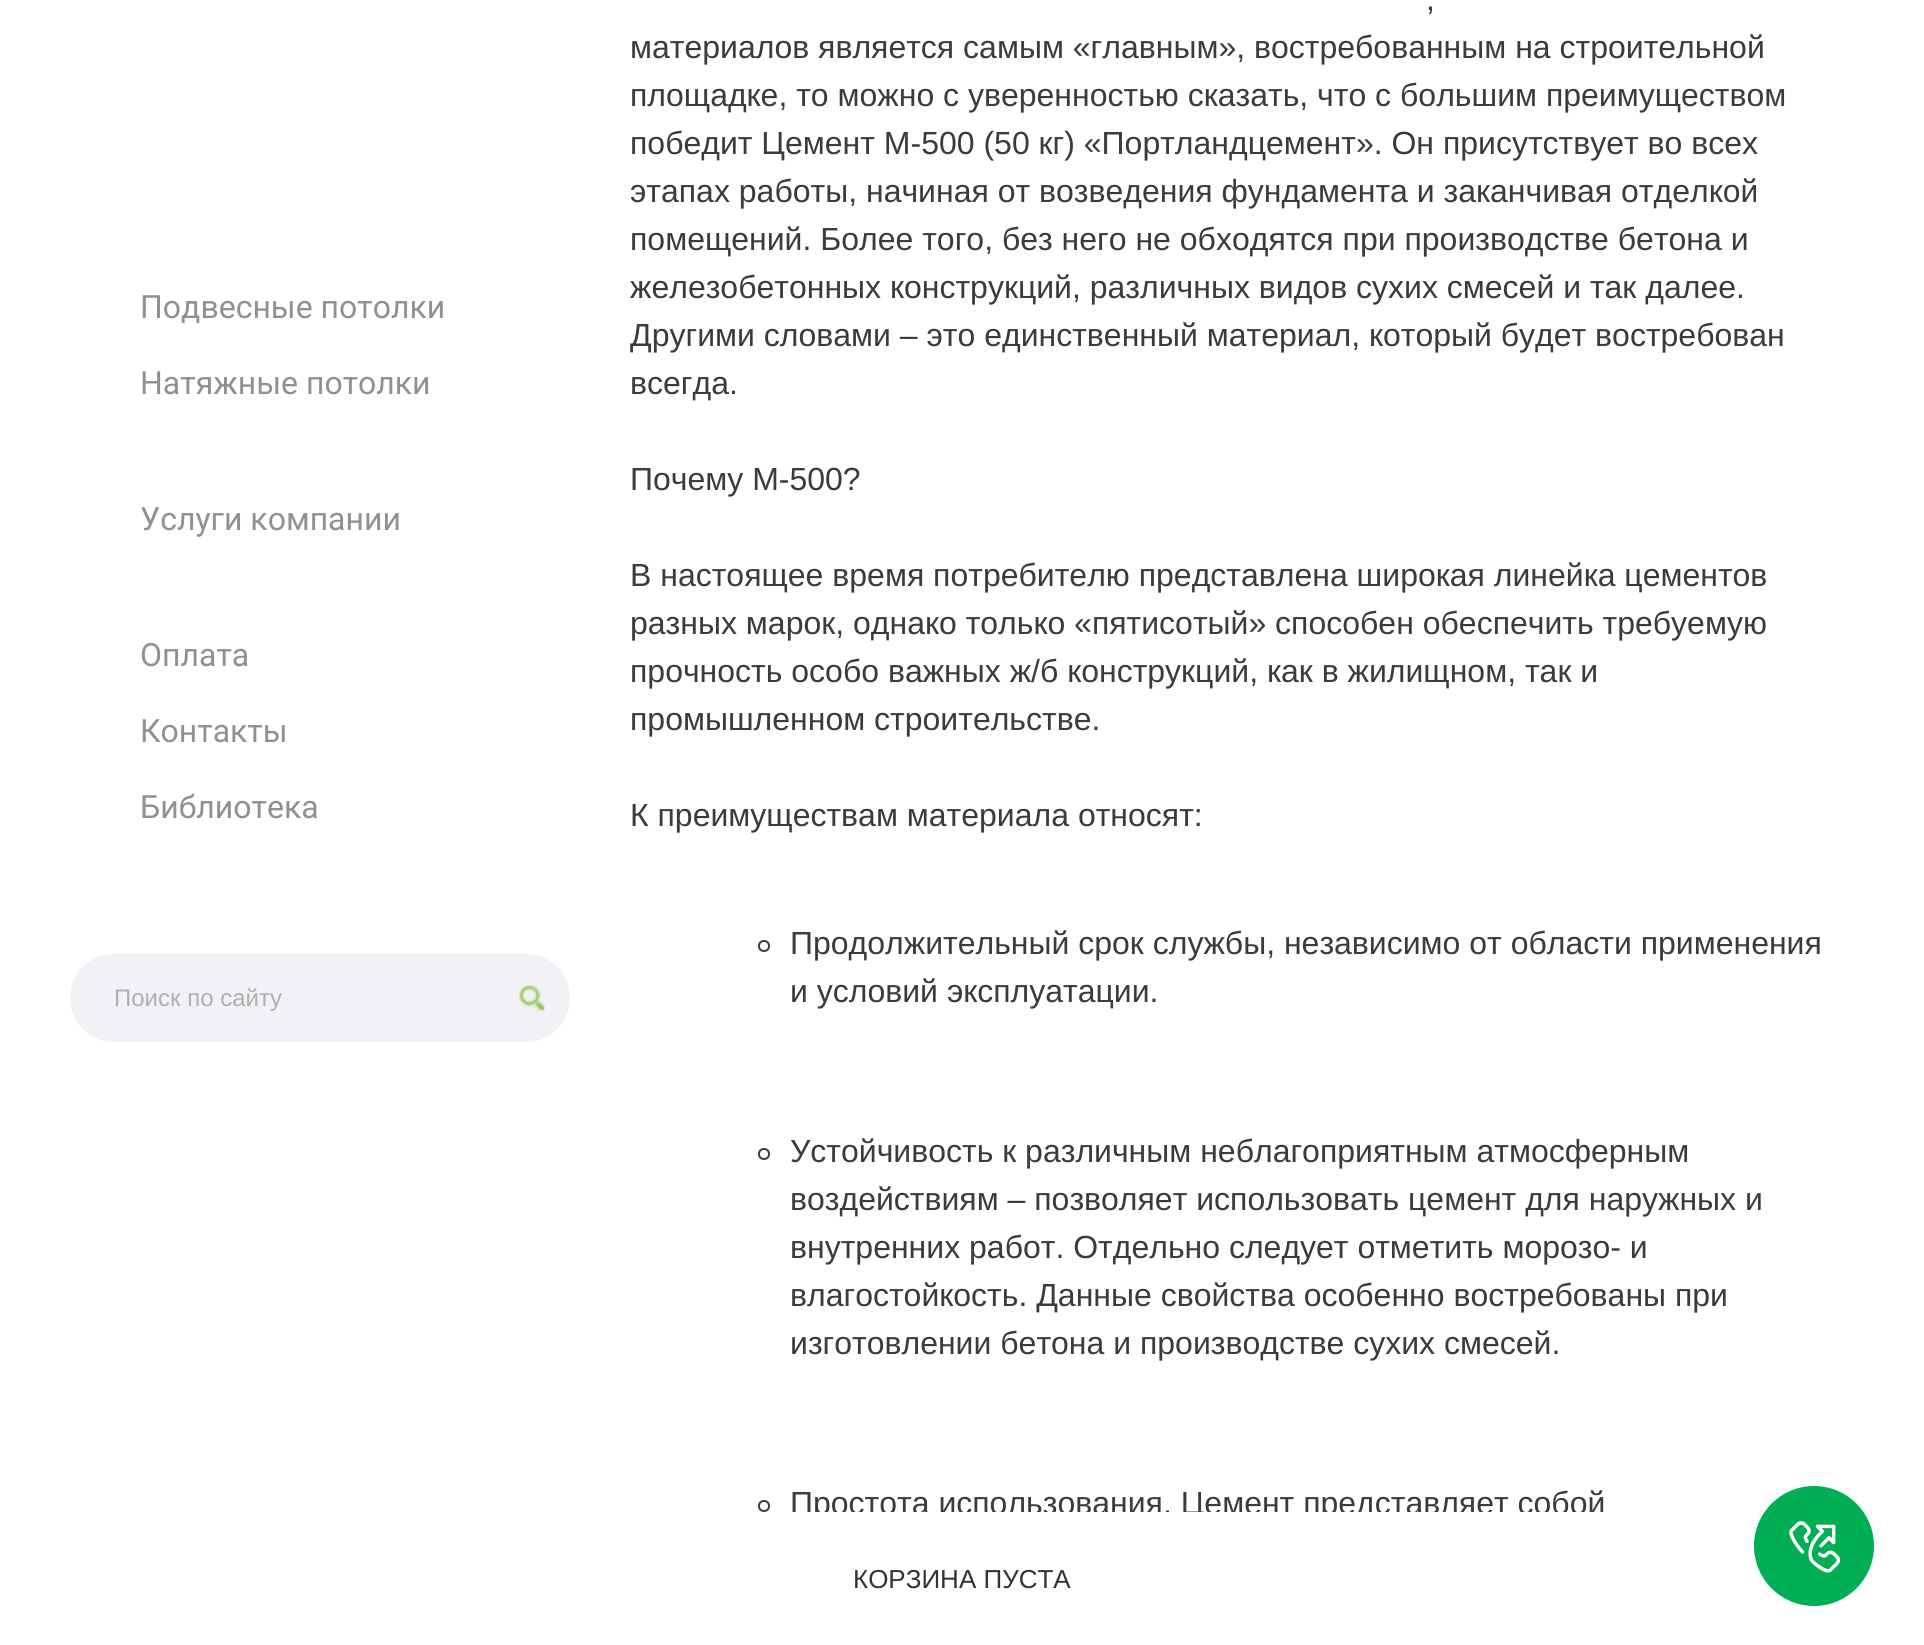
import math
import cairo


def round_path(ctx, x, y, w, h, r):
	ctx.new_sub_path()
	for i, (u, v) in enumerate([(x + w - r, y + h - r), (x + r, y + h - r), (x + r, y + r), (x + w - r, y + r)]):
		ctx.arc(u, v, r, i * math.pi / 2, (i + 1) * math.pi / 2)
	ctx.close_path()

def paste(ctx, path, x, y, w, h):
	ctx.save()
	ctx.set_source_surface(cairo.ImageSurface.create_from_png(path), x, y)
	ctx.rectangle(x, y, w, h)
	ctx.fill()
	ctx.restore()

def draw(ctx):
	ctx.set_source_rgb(1, 1, 1)
	ctx.paint()
	ctx.select_font_face('Roboto')
	ctx.set_font_size(32)
	ctx.set_source_rgb(0.565, 0.565, 0.565)
	for x, y, s in [
		(140, 318, 'Подвесные потолки'),
		(140, 394, 'Натяжные потолки'),
		(140, 530, 'Услуги компании'),
		(140, 666, 'Оплата'),
		(140, 742, 'Контакты'),
		(140, 818, 'Библиотека'),
	]:
		ctx.move_to(x, y)
		ctx.show_text(s)
	ctx.set_source_rgb(0.945, 0.945, 0.961)
	round_path(ctx, 70, 954, 500, 88, 44)
	ctx.fill()
	ctx.select_font_face('Liberation Sans')
	ctx.set_font_size(24)
	ctx.set_source_rgb(0.686, 0.682, 0.682)
	ctx.move_to(114, 1006)
	ctx.show_text('Поиск по сайту')
	paste(ctx, 'media/1.png', 519, 985, 26, 26)
	ctx.set_font_size(32)
	ctx.set_source_rgb(0.231, 0.231, 0.231)
	for x, y, s in [
		(1426, 10, ','),
		(630, 58, 'материалов является самым «главным», востребованным на строительной'),
		(630, 106, 'площадке, то можно с уверенностью сказать, что с большим преимуществом'),
		(630, 154, 'победит Цемент М-500 (50 кг) «Портландцемент». Он присутствует во всех'),
		(630, 202, 'этапах работы, начиная от возведения фундамента и заканчивая отделкой'),
		(630, 250, 'помещений. Более того, без него не обходятся при производстве бетона и'),
		(630, 298, 'железобетонных конструкций, различных видов сухих смесей и так далее.'),
		(630, 346, 'Другими словами – это единственный материал, который будет востребован'),
		(630, 394, 'всегда.'),
		(630, 490, 'Почему М-500?'),
		(630, 586, 'В настоящее время потребителю представлена широкая линейка цементов'),
		(630, 634, 'разных марок, однако только «пятисотый» способен обеспечить требуемую'),
		(630, 682, 'прочность особо важных ж/б конструкций, как в жилищном, так и'),
		(630, 730, 'промышленном строительстве.'),
		(630, 826, 'К преимуществам материала относят:'),
	]:
		ctx.move_to(x, y)
		ctx.show_text(s)
	ctx.new_path()
	ctx.arc(764, 946, 5, 0, 2 * math.pi)
	ctx.stroke()
	ctx.move_to(790, 954)
	ctx.show_text('Продолжительный срок службы, независимо от области применения')
	ctx.move_to(790, 1002)
	ctx.show_text('и условий эксплуатации.')
	ctx.new_path()
	ctx.arc(764, 1154, 5, 0, 2 * math.pi)
	ctx.stroke()
	for x, y, s in [
		(790, 1162, 'Устойчивость к различным неблагоприятным атмосферным'),
		(790, 1210, 'воздействиям – позволяет использовать цемент для наружных и'),
		(790, 1258, 'внутренних работ. Отдельно следует отметить морозо- и'),
		(790, 1306, 'влагостойкость. Данные свойства особенно востребованы при'),
		(790, 1354, 'изготовлении бетона и производстве сухих смесей.'),
	]:
		ctx.move_to(x, y)
		ctx.show_text(s)
	ctx.new_path()
	ctx.arc(764, 1506, 5, 0, 2 * math.pi)
	ctx.stroke()
	ctx.move_to(790, 1514)
	ctx.show_text('Простота использования. Цемент представляет собой')
	ctx.set_source_rgb(1, 1, 1)
	ctx.rectangle(792, 1512, 812, 9)
	ctx.fill()
	ctx.set_font_size(26)
	ctx.set_source_rgb(0.2, 0.2, 0.2)
	ctx.move_to(853, 1588)
	ctx.show_text('КОРЗИНА ПУСТА')
	ctx.set_source_rgb(0, 0.686, 0.325)
	ctx.new_path()
	ctx.arc(1814, 1546, 60, 0, 2 * math.pi)
	ctx.fill()
	paste(ctx, 'media/2.png', 1789, 1521, 52, 52)


surface = cairo.ImageSurface(cairo.FORMAT_RGB24, 1924, 1645)
ctx = cairo.Context(surface)
options = cairo.FontOptions()
options.set_hint_metrics(cairo.HINT_METRICS_OFF)
options.set_hint_style(cairo.HINT_STYLE_NONE)
ctx.set_font_options(options)
ctx.set_miter_limit(4)
draw(ctx)
surface.write_to_png('image.png')
